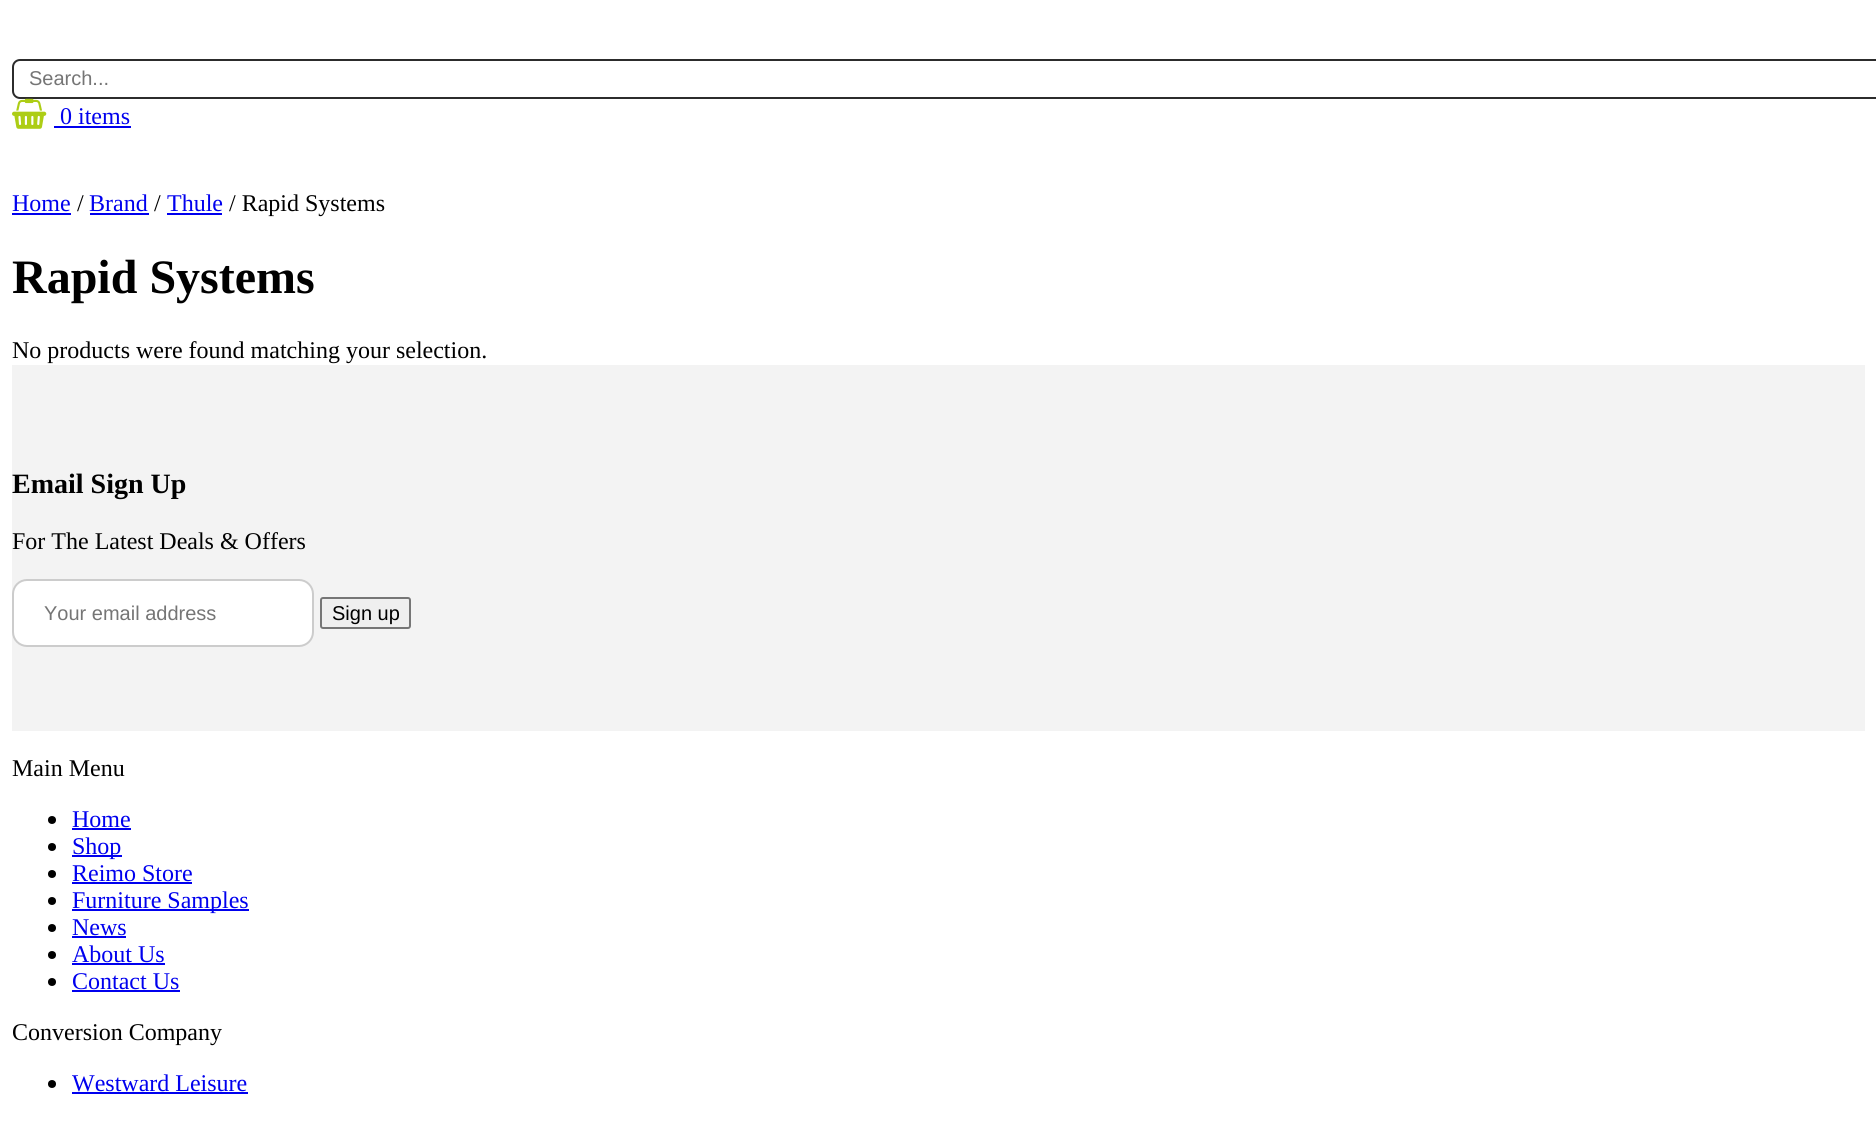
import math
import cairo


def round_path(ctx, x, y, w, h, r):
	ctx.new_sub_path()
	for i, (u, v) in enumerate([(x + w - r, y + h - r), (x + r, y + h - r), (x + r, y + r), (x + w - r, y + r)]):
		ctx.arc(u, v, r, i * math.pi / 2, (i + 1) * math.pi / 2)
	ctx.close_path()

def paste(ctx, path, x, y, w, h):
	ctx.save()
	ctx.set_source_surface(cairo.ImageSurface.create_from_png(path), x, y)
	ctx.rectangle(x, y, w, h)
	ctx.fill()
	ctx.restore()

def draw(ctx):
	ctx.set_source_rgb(1, 1, 1)
	ctx.paint()
	round_path(ctx, 13, 60, 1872, 38, 7)
	ctx.set_source_rgb(0.173, 0.173, 0.173)
	ctx.stroke()
	ctx.select_font_face('Liberation Sans')
	ctx.set_font_size(20)
	ctx.set_source_rgb(0.459, 0.459, 0.459)
	ctx.move_to(29, 85)
	ctx.show_text('Search...')
	paste(ctx, 'media/1.png', 12, 98, 35, 31)
	ctx.select_font_face('Liberation Serif')
	ctx.set_font_size(24)
	ctx.set_source_rgb(0, 0, 0.933)
	ctx.move_to(60, 124)
	ctx.show_text('0 items')
	ctx.rectangle(54, 126, 77, 2)
	ctx.fill()
	ctx.move_to(12, 211)
	ctx.show_text('Home')
	ctx.rectangle(12, 213, 59, 2)
	ctx.fill()
	ctx.set_source_rgb(0, 0, 0)
	ctx.move_to(77, 211)
	ctx.show_text('/')
	ctx.set_source_rgb(0, 0, 0.933)
	ctx.move_to(89, 211)
	ctx.show_text('Brand')
	ctx.rectangle(90, 213, 59, 2)
	ctx.fill()
	ctx.set_source_rgb(0, 0, 0)
	ctx.move_to(154, 211)
	ctx.show_text('/')
	ctx.set_source_rgb(0, 0, 0.933)
	ctx.move_to(167, 211)
	ctx.show_text('Thule')
	ctx.rectangle(167, 213, 55, 2)
	ctx.fill()
	ctx.set_source_rgb(0, 0, 0)
	ctx.move_to(229, 211)
	ctx.show_text('/ Rapid Systems')
	ctx.select_font_face('Liberation Serif', cairo.FONT_SLANT_NORMAL, cairo.FONT_WEIGHT_BOLD)
	ctx.set_font_size(48)
	ctx.move_to(12, 293)
	ctx.show_text('Rapid Systems')
	ctx.select_font_face('Liberation Serif')
	ctx.set_font_size(24)
	ctx.move_to(12, 358)
	ctx.show_text('No products were found matching your selection.')
	ctx.set_source_rgb(0.953, 0.953, 0.953)
	ctx.rectangle(12, 365, 1853, 366)
	ctx.fill()
	ctx.select_font_face('Liberation Serif', cairo.FONT_SLANT_NORMAL, cairo.FONT_WEIGHT_BOLD)
	ctx.set_font_size(28)
	ctx.set_source_rgb(0, 0, 0)
	ctx.move_to(12, 493)
	ctx.show_text('Email Sign Up')
	ctx.select_font_face('Liberation Serif')
	ctx.set_font_size(24)
	ctx.move_to(12, 549)
	ctx.show_text('For The Latest Deals & Offers')
	ctx.set_source_rgb(1, 1, 1)
	round_path(ctx, 13, 580, 300, 66, 14)
	ctx.fill_preserve()
	ctx.set_source_rgb(0.8, 0.8, 0.8)
	ctx.stroke()
	ctx.select_font_face('Liberation Sans')
	ctx.set_font_size(20)
	ctx.set_source_rgb(0.459, 0.459, 0.459)
	ctx.move_to(44, 620)
	ctx.show_text('Your email address')
	ctx.set_source_rgb(0.937, 0.937, 0.937)
	round_path(ctx, 321, 598, 89, 30, 2)
	ctx.fill_preserve()
	ctx.set_source_rgb(0.463, 0.463, 0.463)
	ctx.stroke()
	ctx.set_source_rgb(0, 0, 0)
	ctx.move_to(332, 620)
	ctx.show_text('Sign up')
	ctx.select_font_face('Liberation Serif')
	ctx.set_font_size(24)
	ctx.move_to(12, 776)
	ctx.show_text('Main Menu')
	ctx.new_path()
	ctx.arc(52, 820, 4, 0, 2 * math.pi)
	ctx.fill()
	ctx.set_source_rgb(0, 0, 0.933)
	ctx.move_to(72, 827)
	ctx.show_text('Home')
	ctx.rectangle(72, 828, 59, 2)
	ctx.fill()
	ctx.set_source_rgb(0, 0, 0)
	ctx.arc(52, 847, 4, 0, 2 * math.pi)
	ctx.fill()
	ctx.set_source_rgb(0, 0, 0.933)
	ctx.rectangle(72, 855, 50, 2)
	ctx.fill()
	ctx.move_to(72, 854)
	ctx.show_text('Shop')
	ctx.set_source_rgb(0, 0, 0)
	ctx.new_path()
	ctx.arc(52, 874, 4, 0, 2 * math.pi)
	ctx.fill()
	ctx.set_source_rgb(0, 0, 0.933)
	ctx.move_to(72, 881)
	ctx.show_text('Reimo Store')
	ctx.rectangle(72, 882, 120, 2)
	ctx.fill()
	ctx.set_source_rgb(0, 0, 0)
	ctx.arc(52, 901, 4, 0, 2 * math.pi)
	ctx.fill()
	ctx.set_source_rgb(0, 0, 0.933)
	ctx.rectangle(72, 909, 177, 2)
	ctx.fill()
	ctx.move_to(72, 908)
	ctx.show_text('Furniture Samples')
	ctx.set_source_rgb(0, 0, 0)
	ctx.new_path()
	ctx.arc(52, 928, 4, 0, 2 * math.pi)
	ctx.fill()
	ctx.set_source_rgb(0, 0, 0.933)
	ctx.move_to(72, 935)
	ctx.show_text('News')
	ctx.rectangle(72, 936, 54, 2)
	ctx.fill()
	ctx.set_source_rgb(0, 0, 0)
	ctx.arc(52, 955, 4, 0, 2 * math.pi)
	ctx.fill()
	ctx.set_source_rgb(0, 0, 0.933)
	ctx.move_to(72, 962)
	ctx.show_text('About Us')
	ctx.rectangle(72, 963, 93, 2)
	ctx.fill()
	ctx.set_source_rgb(0, 0, 0)
	ctx.arc(52, 982, 4, 0, 2 * math.pi)
	ctx.fill()
	ctx.set_source_rgb(0, 0, 0.933)
	ctx.move_to(72, 989)
	ctx.show_text('Contact Us')
	ctx.rectangle(72, 990, 108, 2)
	ctx.fill()
	ctx.set_source_rgb(0, 0, 0)
	ctx.move_to(12, 1040)
	ctx.show_text('Conversion Company')
	ctx.new_path()
	ctx.arc(52, 1084, 4, 0, 2 * math.pi)
	ctx.fill()
	ctx.set_source_rgb(0, 0, 0.933)
	ctx.move_to(72, 1091)
	ctx.show_text('Westward Leisure')
	ctx.rectangle(72, 1092, 176, 2)
	ctx.fill()


surface = cairo.ImageSurface(cairo.FORMAT_RGB24, 1876, 1133)
ctx = cairo.Context(surface)
options = cairo.FontOptions()
options.set_hint_metrics(cairo.HINT_METRICS_OFF)
options.set_hint_style(cairo.HINT_STYLE_NONE)
ctx.set_font_options(options)
ctx.set_miter_limit(4)
draw(ctx)
surface.write_to_png('image.png')
